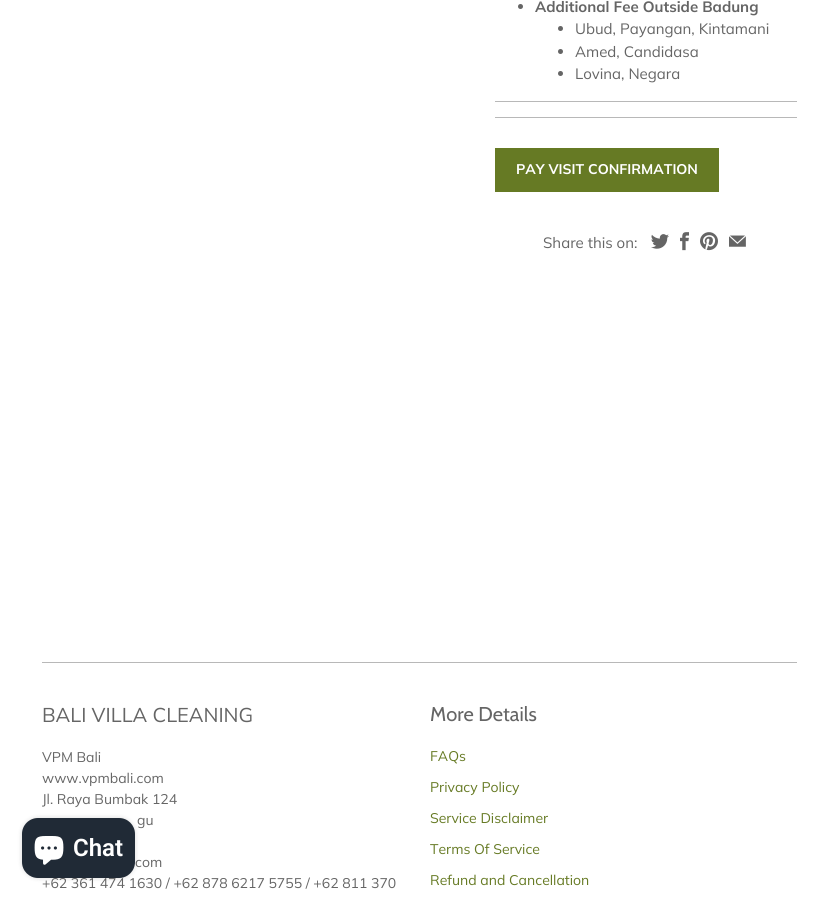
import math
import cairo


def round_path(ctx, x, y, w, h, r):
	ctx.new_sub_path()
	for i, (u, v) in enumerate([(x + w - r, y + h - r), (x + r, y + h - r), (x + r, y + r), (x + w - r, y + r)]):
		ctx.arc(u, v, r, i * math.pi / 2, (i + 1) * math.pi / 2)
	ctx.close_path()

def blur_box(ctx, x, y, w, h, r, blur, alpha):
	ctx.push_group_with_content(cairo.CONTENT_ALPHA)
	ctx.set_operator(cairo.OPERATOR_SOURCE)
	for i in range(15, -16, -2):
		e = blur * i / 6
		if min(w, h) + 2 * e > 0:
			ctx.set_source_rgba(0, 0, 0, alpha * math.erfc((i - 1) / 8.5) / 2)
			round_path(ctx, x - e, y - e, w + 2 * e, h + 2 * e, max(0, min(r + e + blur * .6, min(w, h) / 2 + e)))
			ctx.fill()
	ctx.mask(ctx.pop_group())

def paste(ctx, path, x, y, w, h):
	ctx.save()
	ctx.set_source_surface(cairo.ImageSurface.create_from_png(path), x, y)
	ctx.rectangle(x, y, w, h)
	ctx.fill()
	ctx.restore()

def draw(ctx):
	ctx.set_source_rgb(1, 1, 1)
	ctx.paint()
	ctx.set_source_rgb(0.722, 0.722, 0.722)
	ctx.rectangle(495, 101, 302, 1)
	ctx.fill()
	ctx.set_source_rgb(0.396, 0.396, 0.396)
	ctx.arc(520.5, 6.5, 2.5, 0, 2 * math.pi)
	ctx.fill()
	ctx.select_font_face('Muli', cairo.FONT_SLANT_NORMAL, cairo.FONT_WEIGHT_BOLD)
	ctx.set_font_size(15)
	ctx.move_to(535, 12)
	ctx.show_text('Additional Fee Outside Badung')
	ctx.new_path()
	ctx.arc(560.5, 28.5, 2.5, 0, 2 * math.pi)
	ctx.fill()
	ctx.select_font_face('Muli')
	ctx.move_to(575, 34)
	ctx.show_text('Ubud, Payangan, Kintamani')
	ctx.new_path()
	ctx.arc(560.5, 51.5, 2.5, 0, 2 * math.pi)
	ctx.fill()
	ctx.move_to(575, 57)
	ctx.show_text('Amed, Candidasa')
	ctx.new_path()
	ctx.arc(560.5, 73.5, 2.5, 0, 2 * math.pi)
	ctx.fill()
	ctx.move_to(575, 79)
	ctx.show_text('Lovina, Negara')
	ctx.set_source_rgb(0.722, 0.722, 0.722)
	ctx.rectangle(495, 117, 302, 1)
	ctx.fill()
	ctx.set_source_rgb(0.4, 0.478, 0.141)
	ctx.rectangle(495, 148, 224, 44)
	ctx.fill()
	ctx.select_font_face('Muli', cairo.FONT_SLANT_NORMAL, cairo.FONT_WEIGHT_BOLD)
	ctx.set_font_size(14)
	ctx.set_source_rgb(1, 1, 1)
	ctx.move_to(516, 174)
	ctx.show_text('PAY VISIT CONFIRMATION')
	ctx.select_font_face('Muli')
	ctx.set_font_size(15)
	ctx.set_source_rgb(0.396, 0.396, 0.396)
	ctx.move_to(543, 248)
	ctx.show_text('Share this on:')
	paste(ctx, 'media/1.png', 651, 234, 18, 15)
	paste(ctx, 'media/2.png', 680, 232, 9, 19)
	paste(ctx, 'media/3.png', 700, 232, 18, 19)
	paste(ctx, 'media/4.png', 729, 235, 17, 12)
	ctx.set_source_rgb(0.722, 0.722, 0.722)
	ctx.rectangle(42, 662, 755, 1)
	ctx.fill()
	ctx.set_font_size(20)
	ctx.set_source_rgb(0.396, 0.396, 0.396)
	ctx.move_to(42, 722)
	ctx.show_text('BALI VILLA CLEANING')
	ctx.set_font_size(14)
	for x, y, s in [
		(42, 762, 'VPM Bali'),
		(42, 783, 'www.vpmbali.com'),
		(42, 804, 'Jl. Raya Bumbak 124'),
		(137, 825, 'gu'),
		(135, 867, 'com'),
		(42, 888, '+62 361 474 1630 / +62 878 6217 5755 / +62 811 370'),
	]:
		ctx.move_to(x, y)
		ctx.show_text(s)
	ctx.select_font_face('Cabin')
	ctx.set_font_size(20)
	ctx.move_to(430, 721)
	ctx.show_text('More Details')
	ctx.select_font_face('Muli')
	ctx.set_font_size(14)
	ctx.set_source_rgb(0.4, 0.478, 0.141)
	for x, y, s in [
		(430, 761, 'FAQs'),
		(430, 792, 'Privacy Policy'),
		(430, 823, 'Service Disclaimer'),
		(430, 854, 'Terms Of Service'),
		(430, 885, 'Refund and Cancellation'),
	]:
		ctx.move_to(x, y)
		ctx.show_text(s)
	ctx.set_source_rgb(0, 0, 0)
	blur_box(ctx, 22, 818, 113, 60, 16, 2.5, 0.15)
	ctx.set_source_rgb(0.125, 0.165, 0.212)
	round_path(ctx, 22, 818, 113, 60, 16)
	ctx.fill()
	paste(ctx, 'media/5.png', 34, 836, 30, 29)
	ctx.select_font_face('Roboto SemiBold')
	ctx.set_font_size(24)
	ctx.set_source_rgb(1, 1, 1)
	ctx.move_to(73, 856)
	ctx.show_text('Chat')


surface = cairo.ImageSurface(cairo.FORMAT_RGB24, 839, 899)
ctx = cairo.Context(surface)
options = cairo.FontOptions()
options.set_hint_metrics(cairo.HINT_METRICS_OFF)
options.set_hint_style(cairo.HINT_STYLE_NONE)
ctx.set_font_options(options)
ctx.set_miter_limit(4)
draw(ctx)
surface.write_to_png('image.png')
